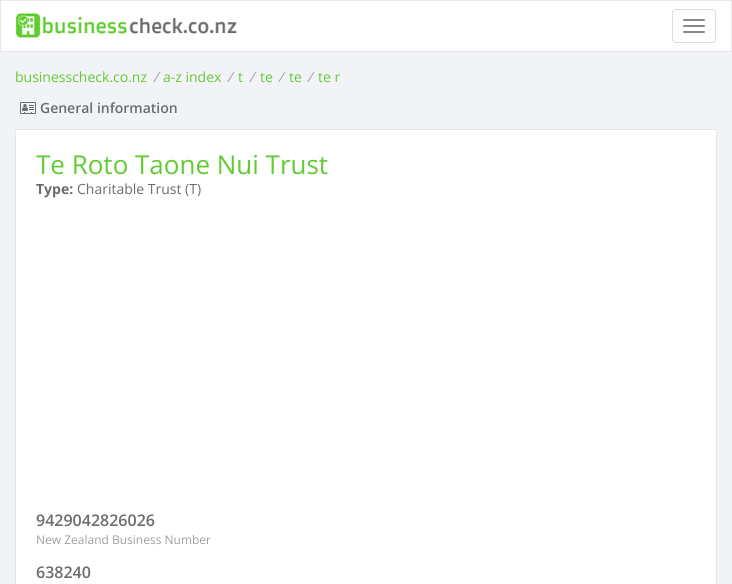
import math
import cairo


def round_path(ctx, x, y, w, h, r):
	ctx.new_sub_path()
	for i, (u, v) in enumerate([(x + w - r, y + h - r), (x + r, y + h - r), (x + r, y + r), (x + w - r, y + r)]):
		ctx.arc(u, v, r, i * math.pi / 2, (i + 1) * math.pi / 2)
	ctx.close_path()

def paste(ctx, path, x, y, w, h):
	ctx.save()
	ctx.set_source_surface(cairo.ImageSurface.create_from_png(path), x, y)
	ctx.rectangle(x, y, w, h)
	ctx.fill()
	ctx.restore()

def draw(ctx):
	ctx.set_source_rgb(0.945, 0.953, 0.965)
	ctx.paint()
	ctx.set_source_rgb(1, 1, 1)
	ctx.rectangle(1, 1, 730, 50)
	ctx.fill()
	ctx.set_source_rgb(0.906, 0.906, 0.906)
	ctx.rectangle(0, 0, 732, 1)
	ctx.rectangle(731, 0, 1, 52)
	ctx.fill()
	ctx.set_source_rgb(0.894, 0.898, 0.906)
	ctx.rectangle(0, 51, 732, 1)
	ctx.fill()
	ctx.set_source_rgb(0.906, 0.906, 0.906)
	ctx.rectangle(0, 0, 1, 52)
	ctx.fill()
	paste(ctx, 'media/1.png', 16, 13, 221, 25)
	round_path(ctx, 672.5, 9.5, 43, 33, 3.5)
	ctx.set_source_rgb(0.867, 0.867, 0.867)
	ctx.set_line_width(1)
	ctx.stroke()
	ctx.set_source_rgb(0.533, 0.533, 0.533)
	round_path(ctx, 683, 19, 22, 2, 1)
	ctx.fill()
	round_path(ctx, 683, 25, 22, 2, 1)
	ctx.fill()
	round_path(ctx, 683, 31, 22, 2, 1)
	ctx.fill()
	ctx.select_font_face('Open Sans')
	ctx.set_font_size(14)
	ctx.set_source_rgb(0.384, 0.796, 0.192)
	ctx.move_to(15, 82)
	ctx.show_text('businesscheck.co.nz')
	ctx.select_font_face('Open Sans', cairo.FONT_SLANT_ITALIC)
	ctx.set_source_rgb(0.616, 0.624, 0.635)
	ctx.move_to(153, 82)
	ctx.show_text('/')
	ctx.select_font_face('Open Sans')
	ctx.set_source_rgb(0.384, 0.796, 0.192)
	ctx.move_to(163, 82)
	ctx.show_text('a-z index')
	ctx.select_font_face('Open Sans', cairo.FONT_SLANT_ITALIC)
	ctx.set_source_rgb(0.616, 0.624, 0.635)
	ctx.move_to(227, 82)
	ctx.show_text('/')
	ctx.select_font_face('Open Sans')
	ctx.set_source_rgb(0.384, 0.796, 0.192)
	ctx.move_to(238, 82)
	ctx.show_text('t')
	ctx.select_font_face('Open Sans', cairo.FONT_SLANT_ITALIC)
	ctx.set_source_rgb(0.616, 0.624, 0.635)
	ctx.move_to(249, 82)
	ctx.show_text('/')
	ctx.select_font_face('Open Sans')
	ctx.set_source_rgb(0.384, 0.796, 0.192)
	ctx.move_to(260, 82)
	ctx.show_text('te')
	ctx.select_font_face('Open Sans', cairo.FONT_SLANT_ITALIC)
	ctx.set_source_rgb(0.616, 0.624, 0.635)
	ctx.move_to(278, 82)
	ctx.show_text('/')
	ctx.select_font_face('Open Sans')
	ctx.set_source_rgb(0.384, 0.796, 0.192)
	ctx.move_to(289, 82)
	ctx.show_text('te')
	ctx.select_font_face('Open Sans', cairo.FONT_SLANT_ITALIC)
	ctx.set_source_rgb(0.616, 0.624, 0.635)
	ctx.move_to(307, 82)
	ctx.show_text('/')
	ctx.select_font_face('Open Sans')
	ctx.set_source_rgb(0.384, 0.796, 0.192)
	ctx.move_to(318, 82)
	ctx.show_text('te r')
	paste(ctx, 'media/2.png', 20, 102, 16, 12)
	ctx.select_font_face('Open Sans SemiBold')
	ctx.set_source_rgb(0.416, 0.424, 0.435)
	ctx.move_to(40, 113)
	ctx.show_text('General information')
	ctx.set_source_rgb(1, 1, 1)
	round_path(ctx, 15.5, 129.5, 701, 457, 1.5)
	ctx.fill_preserve()
	ctx.set_source_rgb(0.894, 0.898, 0.906)
	ctx.stroke()
	ctx.select_font_face('Open Sans')
	ctx.set_font_size(26)
	ctx.set_source_rgb(0.384, 0.796, 0.192)
	ctx.move_to(36, 174)
	ctx.show_text('Te Roto Taone Nui Trust')
	ctx.select_font_face('Open Sans', cairo.FONT_SLANT_NORMAL, cairo.FONT_WEIGHT_BOLD)
	ctx.set_font_size(14)
	ctx.set_source_rgb(0.416, 0.424, 0.435)
	ctx.move_to(36, 194)
	ctx.show_text('Type:')
	ctx.select_font_face('Open Sans')
	ctx.move_to(77, 194)
	ctx.show_text('Charitable Trust (T)')
	ctx.select_font_face('Open Sans SemiBold')
	ctx.set_font_size(16)
	ctx.move_to(36, 526)
	ctx.show_text('9429042826026')
	ctx.select_font_face('Open Sans')
	ctx.set_font_size(12)
	ctx.set_source_rgb(0.616, 0.624, 0.635)
	ctx.move_to(36, 544)
	ctx.show_text('New Zealand Business Number')
	ctx.select_font_face('Open Sans SemiBold')
	ctx.set_font_size(16)
	ctx.set_source_rgb(0.416, 0.424, 0.435)
	ctx.move_to(36, 578)
	ctx.show_text('638240')


surface = cairo.ImageSurface(cairo.FORMAT_RGB24, 732, 584)
ctx = cairo.Context(surface)
options = cairo.FontOptions()
options.set_hint_metrics(cairo.HINT_METRICS_OFF)
options.set_hint_style(cairo.HINT_STYLE_NONE)
ctx.set_font_options(options)
ctx.set_miter_limit(4)
draw(ctx)
surface.write_to_png('image.png')
